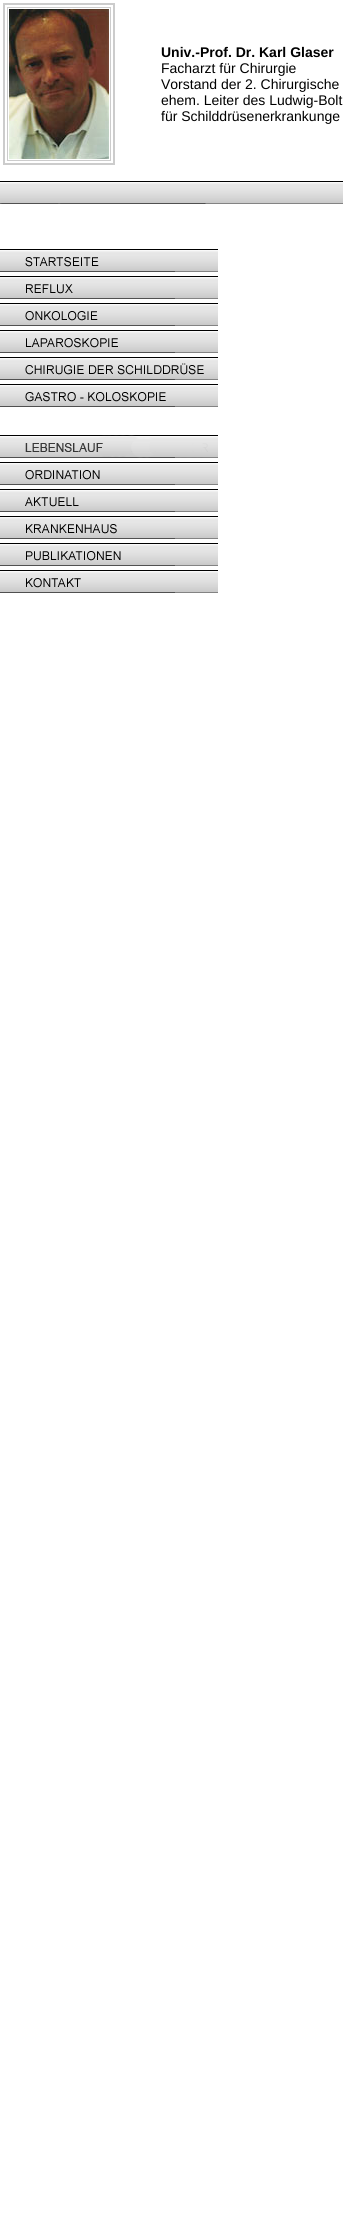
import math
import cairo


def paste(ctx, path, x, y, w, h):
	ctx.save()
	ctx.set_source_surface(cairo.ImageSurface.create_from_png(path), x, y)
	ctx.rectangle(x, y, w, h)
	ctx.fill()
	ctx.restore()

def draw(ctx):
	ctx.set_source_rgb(1, 1, 1)
	ctx.paint()
	ctx.rectangle(4, 4, 110, 160)
	ctx.set_source_rgb(0.8, 0.8, 0.8)
	ctx.stroke()
	ctx.rectangle(7.5, 7.5, 103, 153)
	ctx.set_line_width(1)
	ctx.stroke()
	paste(ctx, 'media/1.png', 9, 9, 100, 150)
	ctx.select_font_face('Liberation Sans', cairo.FONT_SLANT_NORMAL, cairo.FONT_WEIGHT_BOLD)
	ctx.set_font_size(14)
	ctx.set_source_rgb(0, 0, 0)
	ctx.move_to(161, 57)
	ctx.show_text('Univ.-Prof. Dr. Karl Glaser')
	ctx.select_font_face('Liberation Sans')
	for x, y, s in [
		(161, 73, 'Facharzt für Chirurgie'),
		(161, 89, 'Vorstand der 2. Chirurgische'),
		(161, 105, 'ehem. Leiter des Ludwig-Bolt'),
		(161, 121, 'für Schilddrüsenerkrankunge'),
	]:
		ctx.move_to(x, y)
		ctx.show_text(s)
	paste(ctx, 'media/2.png', 0, 181, 343, 23)
	paste(ctx, 'media/3.png', 0, 249, 218, 23)
	paste(ctx, 'media/4.png', 0, 276, 218, 23)
	paste(ctx, 'media/5.png', 0, 303, 218, 23)
	paste(ctx, 'media/6.png', 0, 330, 218, 23)
	paste(ctx, 'media/7.png', 0, 357, 218, 23)
	paste(ctx, 'media/8.png', 0, 384, 218, 23)
	paste(ctx, 'media/9.png', 0, 435, 218, 23)
	paste(ctx, 'media/10.png', 0, 462, 218, 23)
	paste(ctx, 'media/11.png', 0, 489, 218, 23)
	paste(ctx, 'media/12.png', 0, 516, 218, 23)
	paste(ctx, 'media/13.png', 0, 543, 218, 23)
	paste(ctx, 'media/14.png', 0, 570, 218, 23)


surface = cairo.ImageSurface(cairo.FORMAT_RGB24, 343, 2215)
ctx = cairo.Context(surface)
options = cairo.FontOptions()
options.set_hint_metrics(cairo.HINT_METRICS_OFF)
options.set_hint_style(cairo.HINT_STYLE_NONE)
ctx.set_font_options(options)
ctx.set_miter_limit(4)
draw(ctx)
surface.write_to_png('image.png')
